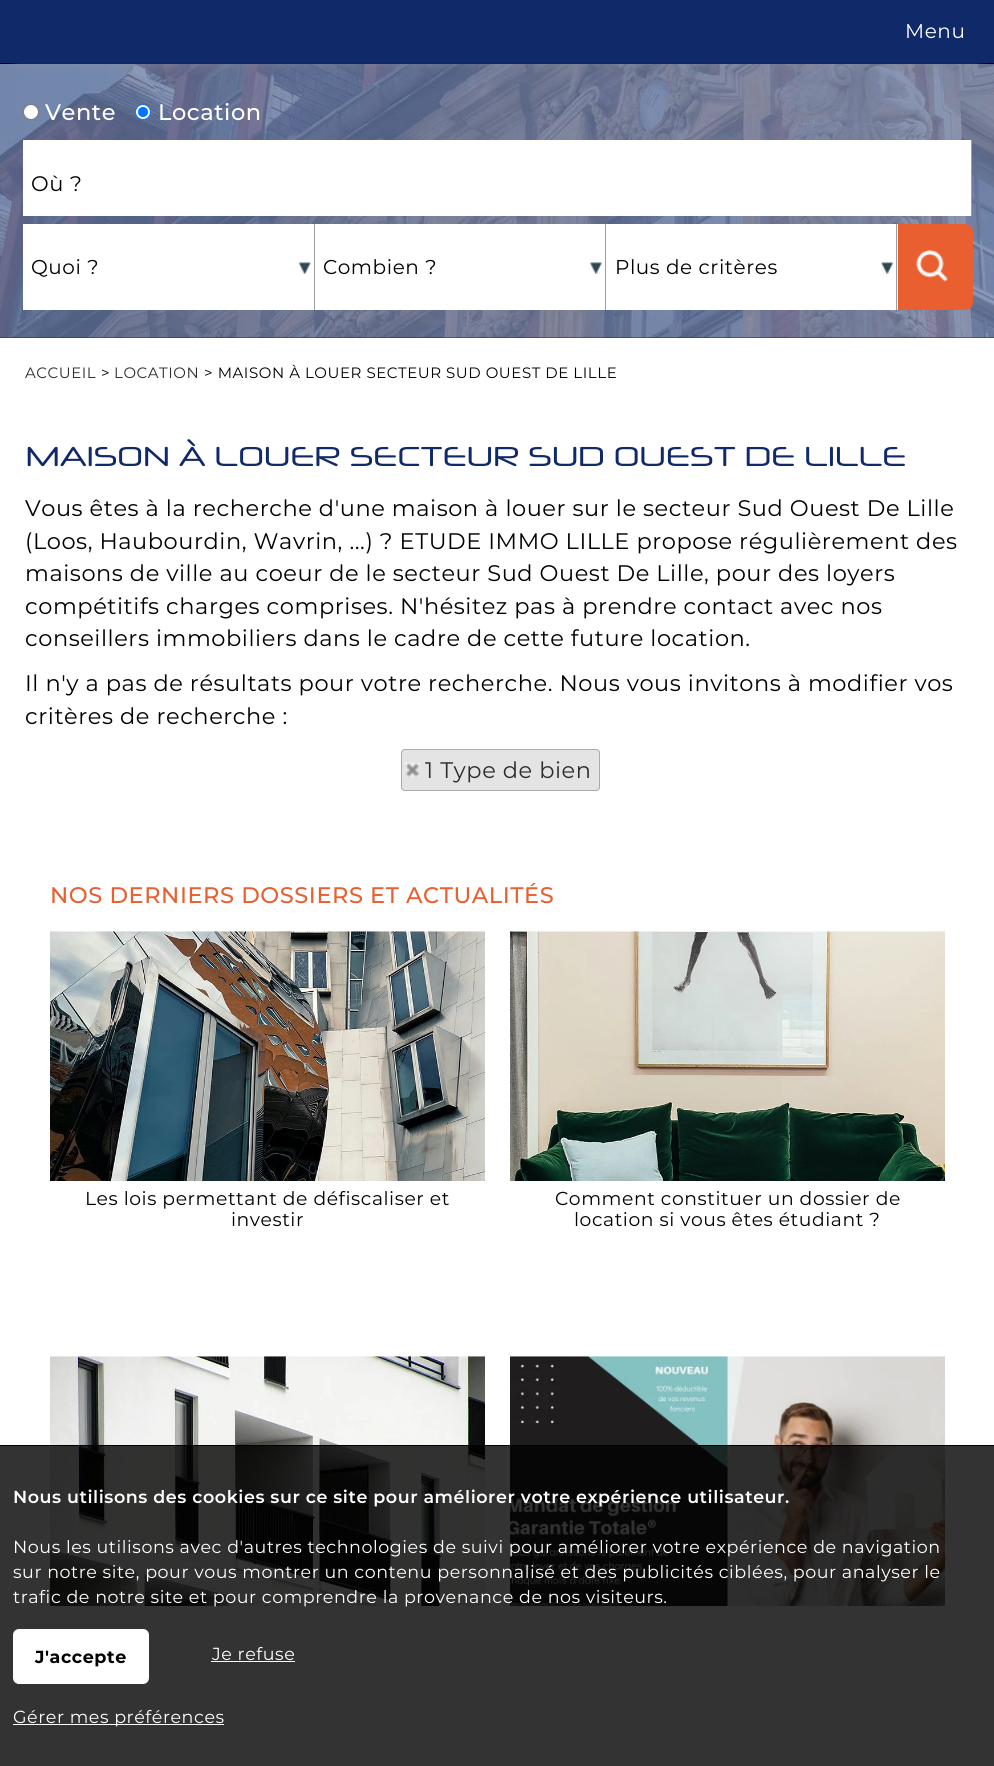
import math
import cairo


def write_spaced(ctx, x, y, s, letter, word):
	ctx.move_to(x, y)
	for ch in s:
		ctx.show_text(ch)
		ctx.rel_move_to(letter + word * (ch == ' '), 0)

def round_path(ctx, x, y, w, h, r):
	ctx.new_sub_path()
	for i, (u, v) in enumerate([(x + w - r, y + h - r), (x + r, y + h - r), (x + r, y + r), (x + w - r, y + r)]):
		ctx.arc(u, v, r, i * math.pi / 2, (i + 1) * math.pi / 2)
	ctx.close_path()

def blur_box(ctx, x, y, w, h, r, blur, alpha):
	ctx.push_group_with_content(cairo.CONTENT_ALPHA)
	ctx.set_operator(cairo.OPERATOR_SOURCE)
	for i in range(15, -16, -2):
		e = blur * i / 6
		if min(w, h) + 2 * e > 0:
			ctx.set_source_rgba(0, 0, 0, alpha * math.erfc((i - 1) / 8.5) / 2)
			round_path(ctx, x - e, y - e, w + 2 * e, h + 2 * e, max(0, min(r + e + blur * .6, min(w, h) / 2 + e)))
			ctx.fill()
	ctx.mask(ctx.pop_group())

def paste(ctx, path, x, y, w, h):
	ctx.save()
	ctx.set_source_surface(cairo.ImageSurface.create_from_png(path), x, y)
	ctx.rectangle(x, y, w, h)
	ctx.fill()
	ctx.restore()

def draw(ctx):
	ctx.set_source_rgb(1, 1, 1)
	ctx.paint()
	ctx.set_source_rgb(0, 0, 0)
	ctx.rectangle(0, 63, 994, 1)
	ctx.fill()
	ctx.set_source_rgb(0.063, 0.161, 0.408)
	ctx.rectangle(0, 337, 994, 1)
	ctx.fill()
	paste(ctx, 'media/1.png', 0, 64, 994, 274)
	ctx.set_source_rgb(0.6, 0.6, 0.6)
	blur_box(ctx, 16, 29, 963, 30, 0, 6, 1)
	ctx.set_source_rgb(0.063, 0.161, 0.408)
	ctx.rectangle(0, 0, 994, 63)
	ctx.fill()
	ctx.select_font_face('Montserrat')
	ctx.set_font_size(20)
	ctx.set_source_rgb(1, 1, 1)
	write_spaced(ctx, 905, 38, 'Menu', 0.56, 0)
	ctx.new_path()
	ctx.arc(31, 112, 7.5, 0, 2 * math.pi)
	ctx.fill_preserve()
	ctx.set_source_rgb(0.463, 0.463, 0.463)
	ctx.set_line_width(1)
	ctx.stroke()
	ctx.select_font_face('Montserrat Medium')
	ctx.set_font_size(22.5)
	ctx.set_source_rgb(1, 1, 1)
	write_spaced(ctx, 45, 120, 'Vente', 0.56, 0)
	ctx.new_path()
	ctx.arc(143, 112, 7.5, 0, 2 * math.pi)
	ctx.fill_preserve()
	ctx.set_source_rgb(0, 0.459, 1)
	ctx.stroke()
	ctx.arc(143, 112, 5, 0, 2 * math.pi)
	ctx.fill()
	ctx.set_source_rgb(1, 1, 1)
	write_spaced(ctx, 158, 120, 'Location', 0.56, 0)
	ctx.set_source_rgb(0.624, 0.624, 0.624)
	ctx.rectangle(971, 140, 1, 76)
	ctx.fill()
	ctx.set_source_rgb(1, 1, 1)
	ctx.rectangle(23, 140, 948, 76)
	ctx.fill()
	ctx.select_font_face('Montserrat')
	ctx.set_font_size(21)
	ctx.set_source_rgb(0, 0, 0)
	write_spaced(ctx, 31, 191, 'Où ?', 0.56, 0)
	ctx.set_source_rgb(1, 1, 1)
	ctx.rectangle(23, 224, 291, 86)
	ctx.fill()
	paste(ctx, 'media/2.png', 298, 262, 14, 12)
	ctx.set_source_rgb(0.624, 0.624, 0.624)
	ctx.rectangle(314, 224, 1, 86)
	ctx.fill()
	ctx.set_font_size(20)
	ctx.set_source_rgb(0, 0, 0)
	write_spaced(ctx, 31, 274, 'Quoi ?', 0.56, 0)
	ctx.set_source_rgb(1, 1, 1)
	ctx.rectangle(315, 224, 290, 86)
	ctx.fill()
	paste(ctx, 'media/3.png', 589, 262, 14, 12)
	ctx.set_source_rgb(0.624, 0.624, 0.624)
	ctx.rectangle(605, 224, 1, 86)
	ctx.fill()
	ctx.set_source_rgb(0, 0, 0)
	write_spaced(ctx, 323, 274, 'Combien ?', 0.56, 0)
	ctx.set_source_rgb(1, 1, 1)
	ctx.rectangle(606, 224, 292, 86)
	ctx.fill()
	paste(ctx, 'media/4.png', 881, 262, 13, 12)
	ctx.set_source_rgb(0.624, 0.624, 0.624)
	ctx.rectangle(896, 224, 1, 86)
	ctx.fill()
	ctx.set_source_rgb(0, 0, 0)
	write_spaced(ctx, 615, 274, 'Plus de critères', 0.56, 0)
	ctx.set_source_rgb(0.914, 0.373, 0.184)
	ctx.new_path()
	ctx.move_to(898, 224)
	ctx.line_to(965, 224)
	ctx.curve_to(969.5, 224, 973, 227.5, 973, 232)
	ctx.line_to(973, 302)
	ctx.curve_to(973, 306.5, 969.5, 310, 965, 310)
	ctx.line_to(898, 310)
	ctx.close_path()
	ctx.fill()
	paste(ctx, 'media/5.png', 916, 249, 32, 33)
	ctx.set_font_size(15)
	ctx.set_source_rgb(0.176, 0.176, 0.176)
	write_spaced(ctx, 25, 378, 'ACCUEIL', 0.56, 0)
	ctx.set_source_rgb(0, 0, 0)
	write_spaced(ctx, 101, 378, '>', 0.56, 0)
	ctx.set_source_rgb(0.176, 0.176, 0.176)
	write_spaced(ctx, 114, 378, 'LOCATION', 0.56, 0)
	ctx.set_source_rgb(0, 0, 0)
	write_spaced(ctx, 204, 378, '> MAISON À LOUER SECTEUR SUD OUEST DE LILLE', 0.56, 0)
	ctx.select_font_face('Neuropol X')
	ctx.set_font_size(27.5)
	ctx.set_source_rgb(0.063, 0.161, 0.408)
	write_spaced(ctx, 25, 466, 'MAISON À LOUER SECTEUR SUD OUEST DE LILLE', -1.4, 0)
	ctx.select_font_face('Montserrat')
	ctx.set_font_size(22.5)
	ctx.set_source_rgb(0, 0, 0)
	for x, y, s in [
		(25, 516, 'Vous êtes à la recherche d\'une maison à louer sur le secteur Sud Ouest De Lille'),
		(25, 549, '(Loos, Haubourdin, Wavrin, ...) ? ETUDE IMMO LILLE propose régulièrement des'),
		(25, 581, 'maisons de ville au coeur de le secteur Sud Ouest De Lille, pour des loyers'),
		(25, 614, 'compétitifs charges comprises. N\'hésitez pas à prendre contact avec nos'),
		(25, 646, 'conseillers immobiliers dans le cadre de cette future location.'),
		(25, 691, 'Il n\'y a pas de résultats pour votre recherche. Nous vous invitons à modifier vos'),
		(25, 724, 'critères de recherche :'),
	]:
		write_spaced(ctx, x, y, s, 0.56, 0)
	ctx.set_source_rgb(0.894, 0.894, 0.894)
	round_path(ctx, 401, 749, 199, 42, 4)
	ctx.fill()
	paste(ctx, 'media/6.png', 405, 762, 15, 16)
	round_path(ctx, 401.5, 749.5, 198, 41, 3.5)
	ctx.set_source_rgb(0.667, 0.667, 0.667)
	ctx.stroke()
	ctx.set_source_rgb(0.176, 0.176, 0.176)
	write_spaced(ctx, 425, 778, '1 Type de bien', 0.56, 0)
	ctx.select_font_face('Montserrat Medium')
	ctx.set_source_rgb(0.914, 0.373, 0.184)
	write_spaced(ctx, 50, 903, 'NOS DERNIERS DOSSIERS ET ACTUALITÉS', 0.56, 0)
	paste(ctx, 'media/7.png', 50, 931, 435, 250)
	ctx.select_font_face('Montserrat')
	ctx.set_font_size(18.75)
	ctx.set_source_rgb(0, 0, 0)
	write_spaced(ctx, 85, 1205, 'Les lois permettant de défiscaliser et', 0.56, 0)
	write_spaced(ctx, 231, 1226, 'investir', 0.56, 0)
	paste(ctx, 'media/8.png', 510, 931, 435, 250)
	write_spaced(ctx, 555, 1205, 'Comment constituer un dossier de', 0.56, 0)
	write_spaced(ctx, 574, 1226, 'location si vous êtes étudiant ?', 0.56, 0)
	paste(ctx, 'media/9.png', 50, 1356, 435, 250)
	paste(ctx, 'media/10.png', 510, 1356, 435, 250)
	ctx.set_source_rgba(0, 0, 0, 0.8)
	ctx.rectangle(0, 1446, 994, 320)
	ctx.fill()
	ctx.set_source_rgb(0, 0, 0)
	ctx.rectangle(0, 1445, 994, 1)
	ctx.fill()
	ctx.select_font_face('Montserrat SemiBold')
	ctx.set_font_size(17.5)
	ctx.set_source_rgb(1, 1, 1)
	write_spaced(ctx, 13, 1503, 'Nous utilisons des cookies sur ce site pour améliorer votre expérience utilisateur.', 0.56, 0)
	ctx.select_font_face('Montserrat')
	for x, y, s in [
		(13, 1553, 'Nous les utilisons avec d\'autres technologies de suivi pour améliorer votre expérience de navigation'),
		(13, 1578, 'sur notre site, pour vous montrer un contenu personnalisé et des publicités ciblées, pour analyser le'),
		(13, 1603, 'trafic de notre site et pour comprendre la provenance de nos visiteurs.'),
	]:
		write_spaced(ctx, x, y, s, 0.56, 0)
	round_path(ctx, 13, 1629, 136, 55, 6)
	ctx.fill()
	ctx.select_font_face('Montserrat', cairo.FONT_SLANT_NORMAL, cairo.FONT_WEIGHT_BOLD)
	ctx.set_source_rgb(0, 0, 0)
	write_spaced(ctx, 35, 1663, 'J\'accepte', 0.56, 0)
	ctx.select_font_face('Montserrat')
	ctx.set_source_rgb(1, 1, 1)
	write_spaced(ctx, 212, 1660, 'Je refuse', 0.56, 0)
	ctx.rectangle(211, 1661, 84, 1)
	ctx.fill()
	ctx.rectangle(13, 1724, 211, 1)
	ctx.fill()
	write_spaced(ctx, 13, 1723, 'Gérer mes préférences', 0.56, 0)


surface = cairo.ImageSurface(cairo.FORMAT_RGB24, 994, 1766)
ctx = cairo.Context(surface)
options = cairo.FontOptions()
options.set_hint_metrics(cairo.HINT_METRICS_OFF)
options.set_hint_style(cairo.HINT_STYLE_NONE)
ctx.set_font_options(options)
ctx.set_miter_limit(4)
draw(ctx)
surface.write_to_png('image.png')
